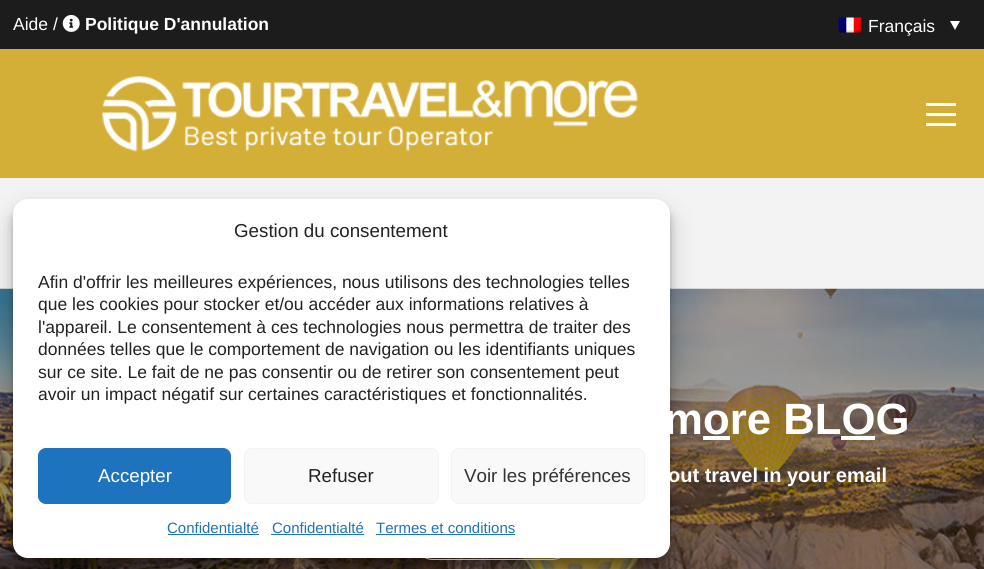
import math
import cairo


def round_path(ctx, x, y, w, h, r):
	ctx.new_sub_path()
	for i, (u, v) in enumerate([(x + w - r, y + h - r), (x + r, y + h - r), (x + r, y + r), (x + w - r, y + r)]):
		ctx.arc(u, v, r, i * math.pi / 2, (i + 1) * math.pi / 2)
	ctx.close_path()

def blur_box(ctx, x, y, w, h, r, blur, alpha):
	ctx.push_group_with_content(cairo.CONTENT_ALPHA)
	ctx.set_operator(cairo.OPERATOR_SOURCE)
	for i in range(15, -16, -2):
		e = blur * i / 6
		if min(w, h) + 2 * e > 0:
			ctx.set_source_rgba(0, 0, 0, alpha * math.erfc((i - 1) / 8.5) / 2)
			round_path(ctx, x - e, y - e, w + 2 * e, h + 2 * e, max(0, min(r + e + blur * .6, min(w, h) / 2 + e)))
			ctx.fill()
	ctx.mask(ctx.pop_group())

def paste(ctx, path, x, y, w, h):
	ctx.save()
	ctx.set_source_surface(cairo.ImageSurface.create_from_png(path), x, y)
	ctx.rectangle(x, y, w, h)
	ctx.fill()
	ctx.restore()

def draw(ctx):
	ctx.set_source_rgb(0.11, 0.11, 0.11)
	ctx.paint()
	ctx.select_font_face('Liberation Sans')
	ctx.set_font_size(17.5)
	ctx.set_source_rgb(1, 1, 1)
	ctx.move_to(13, 30)
	ctx.show_text('Aide /')
	paste(ctx, 'media/1.png', 62, 15, 18, 17)
	ctx.select_font_face('Liberation Sans', cairo.FONT_SLANT_NORMAL, cairo.FONT_WEIGHT_BOLD)
	ctx.move_to(85, 30)
	ctx.show_text('Politique D\'annulation')
	paste(ctx, 'media/2.png', 838, 17, 24, 16)
	ctx.select_font_face('Liberation Sans')
	ctx.move_to(868, 32)
	ctx.show_text('Français')
	ctx.new_path()
	ctx.move_to(950, 21)
	ctx.line_to(960, 21)
	ctx.line_to(955, 30)
	ctx.close_path()
	ctx.fill()
	ctx.set_source_rgb(0.827, 0.686, 0.216)
	ctx.rectangle(0, 49, 984, 129)
	ctx.fill()
	paste(ctx, 'media/3.png', 102, 76, 536, 76)
	ctx.set_source_rgb(1, 1, 1)
	ctx.rectangle(926, 103, 30, 3)
	ctx.rectangle(926, 113, 30, 3)
	ctx.rectangle(926, 123, 30, 3)
	ctx.fill()
	ctx.set_source_rgb(0.953, 0.953, 0.953)
	ctx.rectangle(0, 178, 984, 111)
	ctx.fill()
	paste(ctx, 'media/4.png', 0, 288, 984, 281)
	round_path(ctx, 415.5, 513.5, 154, 46, 17.5)
	ctx.set_source_rgb(1, 1, 1)
	ctx.set_line_width(1)
	ctx.stroke()
	ctx.set_source_rgb(0, 0, 0)
	blur_box(ctx, 13, 206, 657, 359, 15, 4, 0.23)
	ctx.set_source_rgb(1, 1, 1)
	ctx.rectangle(703, 436, 27, 4)
	ctx.fill()
	ctx.set_source_rgb(0, 0, 0)
	blur_box(ctx, 13, 211, 657, 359, 15, 12.5, 0.19)
	ctx.set_source_rgb(1, 1, 1)
	round_path(ctx, 13, 199, 657, 359, 15)
	ctx.fill()
	ctx.set_font_size(18.75)
	ctx.set_source_rgb(0.133, 0.133, 0.133)
	ctx.move_to(234, 237)
	ctx.show_text('Gestion du consentement')
	ctx.set_font_size(17.5)
	for x, y, s in [
		(38, 288, 'Afin d\'offrir les meilleures expériences, nous utilisons des technologies telles'),
		(38, 310, 'que les cookies pour stocker et/ou accéder aux informations relatives à'),
		(38, 333, 'l\'appareil. Le consentement à ces technologies nous permettra de traiter des'),
		(38, 355, 'données telles que le comportement de navigation ou les identifiants uniques'),
		(38, 378, 'sur ce site. Le fait de ne pas consentir ou de retirer son consentement peut'),
		(38, 400, 'avoir un impact négatif sur certaines caractéristiques et fonctionnalités.'),
	]:
		ctx.move_to(x, y)
		ctx.show_text(s)
	ctx.set_source_rgb(0.118, 0.451, 0.745)
	round_path(ctx, 38.5, 448.5, 192, 55, 7.5)
	ctx.fill_preserve()
	ctx.stroke()
	ctx.set_font_size(18.75)
	ctx.set_source_rgb(1, 1, 1)
	ctx.move_to(98, 482)
	ctx.show_text('Accepter')
	ctx.set_source_rgb(0.976, 0.976, 0.976)
	round_path(ctx, 244.5, 448.5, 194, 55, 7.5)
	ctx.fill_preserve()
	ctx.set_source_rgb(0.949, 0.949, 0.949)
	ctx.stroke()
	ctx.set_source_rgb(0.133, 0.133, 0.133)
	ctx.move_to(308, 482)
	ctx.show_text('Refuser')
	ctx.set_source_rgb(0.976, 0.976, 0.976)
	round_path(ctx, 451.5, 448.5, 193, 55, 7.5)
	ctx.fill_preserve()
	ctx.set_source_rgb(0.949, 0.949, 0.949)
	ctx.stroke()
	ctx.set_source_rgb(0.2, 0.2, 0.2)
	ctx.move_to(464, 482)
	ctx.show_text('Voir les préférences')
	ctx.set_font_size(15)
	ctx.set_source_rgb(0.118, 0.451, 0.745)
	ctx.move_to(167, 533)
	ctx.show_text('Confidentialté')
	ctx.rectangle(168, 534, 91, 1)
	ctx.fill()
	ctx.move_to(272, 533)
	ctx.show_text('Confidentialté')
	ctx.rectangle(271, 534, 93, 1)
	ctx.fill()
	ctx.move_to(376, 533)
	ctx.show_text('Termes et conditions')
	ctx.rectangle(376, 534, 139, 1)
	ctx.fill()
	ctx.select_font_face('Liberation Sans', cairo.FONT_SLANT_NORMAL, cairo.FONT_WEIGHT_BOLD)
	ctx.set_font_size(43.75)
	ctx.set_source_rgb(1, 1, 1)
	ctx.move_to(664, 434)
	ctx.show_text('more BLOG')
	ctx.rectangle(841, 436, 34, 4)
	ctx.fill()
	ctx.set_font_size(20)
	ctx.move_to(668, 482)
	ctx.show_text('out travel in your email')


surface = cairo.ImageSurface(cairo.FORMAT_RGB24, 984, 569)
ctx = cairo.Context(surface)
options = cairo.FontOptions()
options.set_hint_metrics(cairo.HINT_METRICS_OFF)
options.set_hint_style(cairo.HINT_STYLE_NONE)
ctx.set_font_options(options)
ctx.set_miter_limit(4)
draw(ctx)
surface.write_to_png('image.png')
